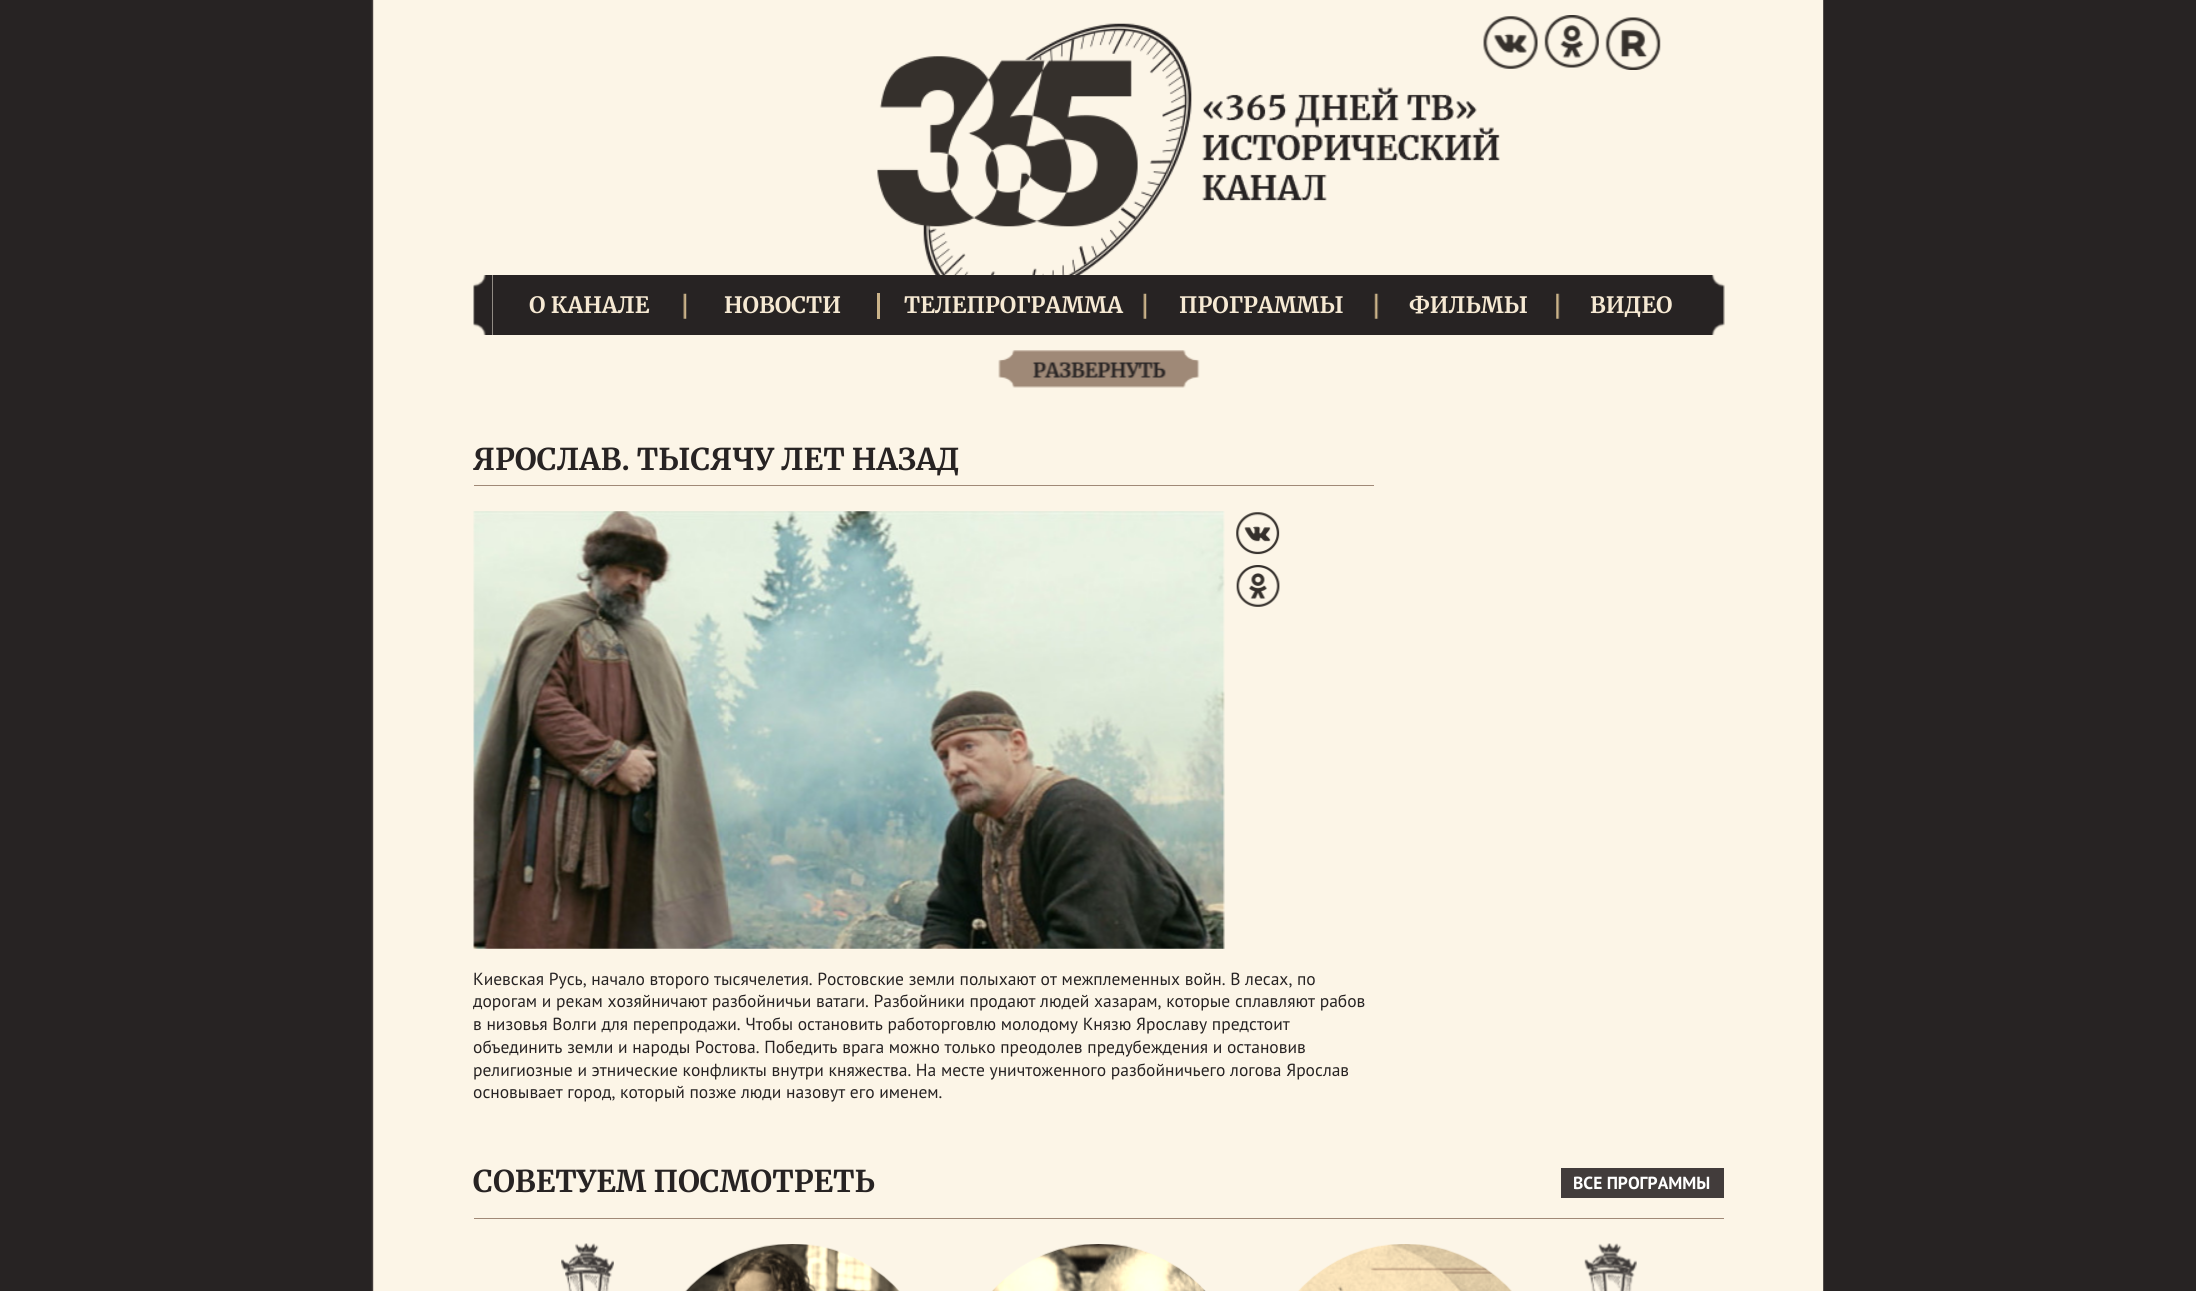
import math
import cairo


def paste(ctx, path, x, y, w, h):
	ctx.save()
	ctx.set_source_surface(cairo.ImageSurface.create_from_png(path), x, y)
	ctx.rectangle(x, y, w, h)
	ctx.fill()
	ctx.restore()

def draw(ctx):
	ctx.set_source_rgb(1, 1, 1)
	ctx.paint()
	paste(ctx, 'media/1.png', 0, 0, 2196, 1291)
	paste(ctx, 'media/2.png', 877, 23, 623, 252)
	paste(ctx, 'media/3.png', 1483, 16, 55, 53)
	paste(ctx, 'media/4.png', 1544, 15, 55, 53)
	paste(ctx, 'media/5.png', 1605, 17, 56, 53)
	paste(ctx, 'media/6.png', 473, 275, 20, 60)
	paste(ctx, 'media/7.png', 1705, 275, 20, 60)
	ctx.set_source_rgb(0.153, 0.137, 0.137)
	ctx.rectangle(493, 275, 1212, 60)
	ctx.fill()
	paste(ctx, 'media/8.png', 683, 293, 4, 26)
	ctx.select_font_face('Merriweather', cairo.FONT_SLANT_NORMAL, cairo.FONT_WEIGHT_BOLD)
	ctx.set_font_size(22.5)
	ctx.set_source_rgb(0.961, 0.914, 0.827)
	ctx.move_to(529, 313)
	ctx.show_text('О КАНАЛЕ')
	ctx.set_source_rgb(0.796, 0.702, 0.537)
	ctx.rectangle(877, 293, 3, 26)
	ctx.fill()
	ctx.set_source_rgb(0.961, 0.914, 0.827)
	ctx.move_to(724, 313)
	ctx.show_text('НОВОСТИ')
	paste(ctx, 'media/8.png', 1143, 293, 4, 26)
	ctx.move_to(904, 313)
	ctx.show_text('ТЕЛЕПРОГРАММА')
	paste(ctx, 'media/9.png', 1374, 293, 5, 26)
	ctx.move_to(1179, 313)
	ctx.show_text('ПРОГРАММЫ')
	paste(ctx, 'media/10.png', 1556, 293, 4, 26)
	ctx.move_to(1409, 313)
	ctx.show_text('ФИЛЬМЫ')
	ctx.move_to(1590, 313)
	ctx.show_text('ВИДЕО')
	paste(ctx, 'media/11.png', 998, 350, 202, 38)
	ctx.set_font_size(30)
	ctx.set_source_rgb(0.153, 0.137, 0.137)
	ctx.move_to(473, 470)
	ctx.show_text('ЯРОСЛАВ. ТЫСЯЧУ ЛЕТ НАЗАД')
	ctx.set_source_rgb(0.627, 0.537, 0.467)
	ctx.rectangle(474, 485, 900, 1)
	ctx.fill()
	paste(ctx, 'media/12.png', 473, 511, 752, 438)
	paste(ctx, 'media/13.png', 1236, 512, 44, 43)
	paste(ctx, 'media/14.png', 1236, 565, 44, 42)
	ctx.select_font_face('PT Sans')
	ctx.set_font_size(17.5)
	ctx.set_source_rgb(0.153, 0.137, 0.137)
	for x, y, s in [
		(473, 985, 'Киевская Русь, начало второго тысячелетия. Ростовские земли полыхают от межплеменных войн. В лесах, по'),
		(473, 1007, 'дорогам и рекам хозяйничают разбойничьи ватаги. Разбойники продают людей хазарам, которые сплавляют рабов'),
		(473, 1030, 'в низовья Волги для перепродажи. Чтобы остановить работорговлю молодому Князю Ярославу предстоит'),
		(473, 1053, 'объединить земли и народы Ростова. Победить врага можно только преодолев предубеждения и остановив'),
		(473, 1076, 'религиозные и этнические конфликты внутри княжества. На месте уничтоженного разбойничьего логова Ярослав'),
		(473, 1098, 'основывает город, который позже люди назовут его именем.'),
	]:
		ctx.move_to(x, y)
		ctx.show_text(s)
	ctx.select_font_face('Merriweather', cairo.FONT_SLANT_NORMAL, cairo.FONT_WEIGHT_BOLD)
	ctx.set_font_size(30)
	ctx.move_to(473, 1192)
	ctx.show_text('СОВЕТУЕМ ПОСМОТРЕТЬ')
	ctx.set_source_rgb(0.259, 0.235, 0.231)
	ctx.rectangle(1561, 1168, 163, 30)
	ctx.fill()
	ctx.select_font_face('PT Sans', cairo.FONT_SLANT_NORMAL, cairo.FONT_WEIGHT_BOLD)
	ctx.set_font_size(17.5)
	ctx.set_source_rgb(1, 1, 1)
	ctx.move_to(1573, 1189)
	ctx.show_text('ВСЕ ПРОГРАММЫ')
	ctx.set_source_rgb(0.627, 0.537, 0.467)
	ctx.rectangle(474, 1218, 1250, 1)
	ctx.fill()
	paste(ctx, 'media/15.png', 561, 1243, 53, 48)
	paste(ctx, 'media/16.png', 685, 1244, 215, 47)
	paste(ctx, 'media/17.png', 992, 1244, 214, 47)
	paste(ctx, 'media/18.png', 1298, 1244, 214, 47)
	paste(ctx, 'media/19.png', 1584, 1243, 53, 48)


surface = cairo.ImageSurface(cairo.FORMAT_RGB24, 2196, 1291)
ctx = cairo.Context(surface)
options = cairo.FontOptions()
options.set_hint_metrics(cairo.HINT_METRICS_OFF)
options.set_hint_style(cairo.HINT_STYLE_NONE)
ctx.set_font_options(options)
ctx.set_miter_limit(4)
draw(ctx)
surface.write_to_png('image.png')
